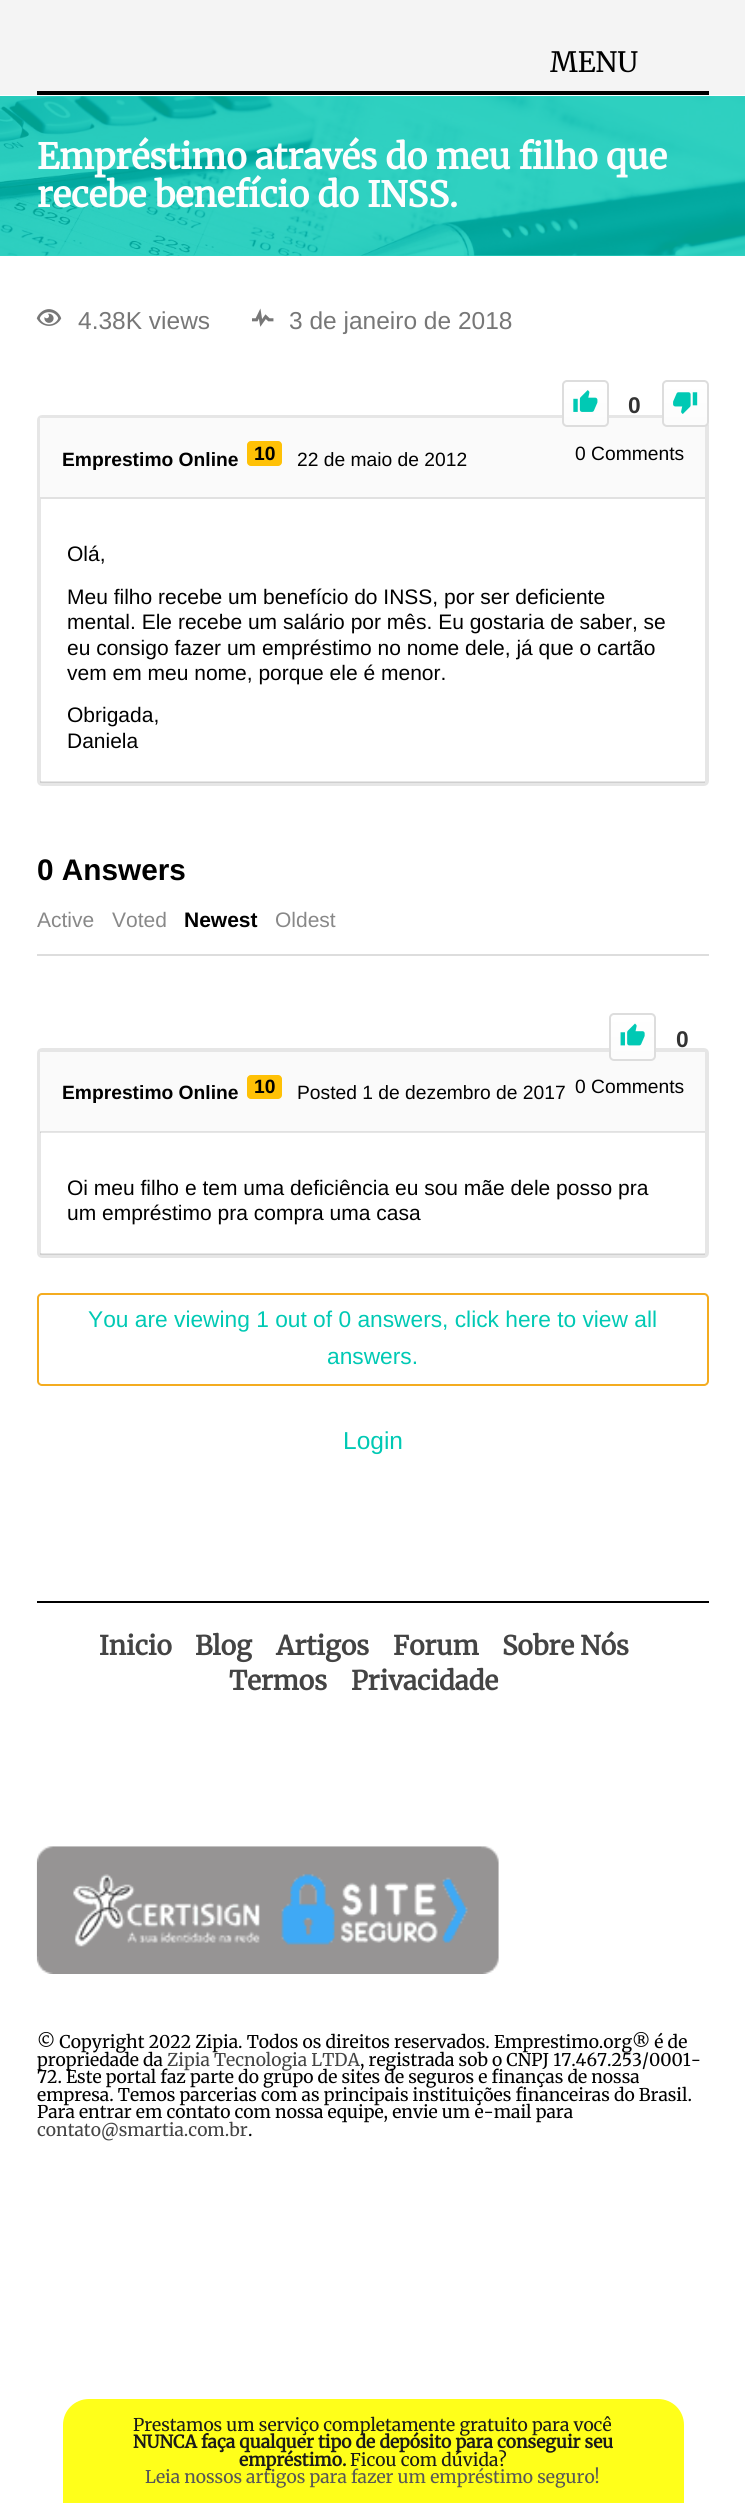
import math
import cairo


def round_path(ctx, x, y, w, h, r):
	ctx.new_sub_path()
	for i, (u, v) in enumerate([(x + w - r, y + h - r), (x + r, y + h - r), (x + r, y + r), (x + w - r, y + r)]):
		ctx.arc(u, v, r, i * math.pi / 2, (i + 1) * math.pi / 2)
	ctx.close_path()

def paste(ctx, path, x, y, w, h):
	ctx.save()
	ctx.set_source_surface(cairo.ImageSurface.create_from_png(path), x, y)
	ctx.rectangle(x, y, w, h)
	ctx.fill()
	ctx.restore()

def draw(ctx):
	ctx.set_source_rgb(1, 1, 1)
	ctx.paint()
	ctx.set_source_rgb(0.2, 0.831, 0.765)
	ctx.rectangle(0, 96, 745, 160)
	ctx.fill()
	ctx.set_source_rgb(0.957, 0.957, 0.957)
	ctx.rectangle(0, 0, 745, 95)
	ctx.fill()
	ctx.set_source_rgb(0, 0, 0)
	ctx.rectangle(37, 91, 672, 4)
	ctx.fill()
	ctx.select_font_face('Merriweather Light')
	ctx.set_font_size(28)
	ctx.move_to(550, 72)
	ctx.show_text('MENU')
	paste(ctx, 'media/1.png', 0, 96, 745, 160)
	ctx.select_font_face('Merriweather', cairo.FONT_SLANT_NORMAL, cairo.FONT_WEIGHT_BOLD)
	ctx.set_font_size(35)
	ctx.set_source_rgb(0.992, 0.996, 0.996)
	ctx.move_to(37, 169)
	ctx.show_text('Empréstimo através do meu filho que')
	ctx.move_to(37, 207)
	ctx.show_text('recebe benefício do INSS.')
	paste(ctx, 'media/2.png', 36, 309, 26, 17)
	ctx.select_font_face('Liberation Sans')
	ctx.set_font_size(24.5)
	ctx.set_source_rgb(0.467, 0.467, 0.467)
	ctx.move_to(78, 329)
	ctx.show_text('4.38K views')
	paste(ctx, 'media/3.png', 252, 308, 22, 19)
	ctx.move_to(289, 329)
	ctx.show_text('3 de janeiro de 2018')
	round_path(ctx, 39, 417, 668, 367, 3)
	ctx.set_source_rgb(0.902, 0.902, 0.902)
	ctx.set_line_width(4)
	ctx.stroke()
	ctx.set_source_rgb(0.98, 0.98, 0.98)
	ctx.rectangle(40, 418, 665, 79)
	ctx.fill()
	ctx.save()
	round_path(ctx, 562, 380, 47, 47, 5)
	ctx.clip()
	gradient = cairo.LinearGradient(585, 382, 585, 425)
	gradient.add_color_stop_rgba(0, 1, 1, 1, 1)
	gradient.add_color_stop_rgba(1, 0.988, 0.988, 0.988, 1)
	ctx.set_source(gradient)
	ctx.rectangle(562, 382, 47, 43)
	ctx.fill()
	ctx.restore()
	round_path(ctx, 563, 381, 45, 45, 4)
	ctx.set_source_rgb(0.867, 0.867, 0.867)
	ctx.set_line_width(2)
	ctx.stroke()
	paste(ctx, 'media/4.png', 573, 390, 25, 22)
	ctx.select_font_face('Liberation Sans', cairo.FONT_SLANT_NORMAL, cairo.FONT_WEIGHT_BOLD)
	ctx.set_font_size(22.75)
	ctx.set_source_rgb(0.2, 0.2, 0.2)
	ctx.move_to(628, 413)
	ctx.show_text('0')
	ctx.save()
	round_path(ctx, 662, 380, 47, 47, 5)
	ctx.clip()
	gradient = cairo.LinearGradient(685, 382, 685, 425)
	gradient.add_color_stop_rgba(0, 1, 1, 1, 1)
	gradient.add_color_stop_rgba(1, 0.988, 0.988, 0.988, 1)
	ctx.set_source(gradient)
	ctx.rectangle(662, 382, 47, 43)
	ctx.fill()
	ctx.restore()
	round_path(ctx, 663, 381, 45, 45, 4)
	ctx.set_source_rgb(0.867, 0.867, 0.867)
	ctx.stroke()
	paste(ctx, 'media/5.png', 673, 392, 25, 22)
	ctx.set_source_rgb(0.882, 0.882, 0.882)
	ctx.rectangle(40, 497, 665, 2)
	ctx.fill()
	ctx.set_font_size(19.25)
	ctx.set_source_rgb(0, 0, 0)
	ctx.move_to(62, 466)
	ctx.show_text('Emprestimo Online')
	ctx.set_source_rgb(1, 0.757, 0.027)
	round_path(ctx, 247, 441, 35, 25, 4)
	ctx.fill()
	ctx.set_source_rgb(0, 0, 0)
	ctx.move_to(254, 460)
	ctx.show_text('10')
	ctx.select_font_face('Liberation Sans')
	ctx.move_to(297, 466)
	ctx.show_text('22 de maio de 2012')
	ctx.move_to(575, 460)
	ctx.show_text('0 Comments')
	ctx.set_font_size(21)
	for x, y, s in [
		(67, 561, 'Olá,'),
		(67, 604, 'Meu filho recebe um benefício do INSS, por ser deficiente'),
		(67, 629, 'mental. Ele recebe um salário por mês. Eu gostaria de saber, se'),
		(67, 655, 'eu consigo fazer um empréstimo no nome dele, já que o cartão'),
		(67, 680, 'vem em meu nome, porque ele é menor.'),
		(67, 722, 'Obrigada,'),
		(67, 748, 'Daniela'),
	]:
		ctx.move_to(x, y)
		ctx.show_text(s)
	ctx.set_source_rgba(0, 0, 0, 0.1)
	ctx.rectangle(40, 781, 665, 2)
	ctx.fill()
	ctx.set_source_rgb(0.867, 0.867, 0.867)
	ctx.rectangle(37, 954, 672, 2)
	ctx.fill()
	ctx.select_font_face('Liberation Sans', cairo.FONT_SLANT_NORMAL, cairo.FONT_WEIGHT_BOLD)
	ctx.set_font_size(29.75)
	ctx.set_source_rgb(0, 0, 0)
	ctx.move_to(37, 880)
	ctx.show_text('0 Answers')
	ctx.select_font_face('Liberation Sans')
	ctx.set_font_size(21)
	ctx.set_source_rgb(0.533, 0.533, 0.533)
	ctx.move_to(37, 927)
	ctx.show_text('Active')
	ctx.move_to(112, 927)
	ctx.show_text('Voted')
	ctx.select_font_face('Liberation Sans', cairo.FONT_SLANT_NORMAL, cairo.FONT_WEIGHT_BOLD)
	ctx.set_source_rgb(0, 0, 0)
	ctx.move_to(184, 927)
	ctx.show_text('Newest')
	ctx.select_font_face('Liberation Sans')
	ctx.set_source_rgb(0.533, 0.533, 0.533)
	ctx.move_to(275, 927)
	ctx.show_text('Oldest')
	round_path(ctx, 39, 1050, 668, 206, 3)
	ctx.set_source_rgb(0.902, 0.902, 0.902)
	ctx.set_line_width(4)
	ctx.stroke()
	ctx.set_source_rgb(0.98, 0.98, 0.98)
	ctx.rectangle(40, 1052, 665, 80)
	ctx.fill()
	ctx.save()
	round_path(ctx, 609, 1013, 47, 48, 5)
	ctx.clip()
	gradient = cairo.LinearGradient(633, 1015, 633, 1059)
	gradient.add_color_stop_rgba(0, 1, 1, 1, 1)
	gradient.add_color_stop_rgba(1, 0.988, 0.988, 0.988, 1)
	ctx.set_source(gradient)
	ctx.rectangle(609, 1015, 47, 44)
	ctx.fill()
	ctx.restore()
	round_path(ctx, 610, 1014, 45, 46, 4)
	ctx.set_source_rgb(0.867, 0.867, 0.867)
	ctx.set_line_width(2)
	ctx.stroke()
	paste(ctx, 'media/6.png', 620, 1023, 25, 23)
	ctx.select_font_face('Liberation Sans', cairo.FONT_SLANT_NORMAL, cairo.FONT_WEIGHT_BOLD)
	ctx.set_font_size(22.75)
	ctx.set_source_rgb(0.2, 0.2, 0.2)
	ctx.move_to(676, 1047)
	ctx.show_text('0')
	ctx.set_source_rgba(0, 0, 0, 0.1)
	ctx.rectangle(40, 1131, 665, 2)
	ctx.fill()
	ctx.set_font_size(19.25)
	ctx.set_source_rgb(0, 0, 0)
	ctx.move_to(62, 1099)
	ctx.show_text('Emprestimo Online')
	ctx.set_source_rgb(1, 0.757, 0.027)
	round_path(ctx, 247, 1075, 35, 24, 4)
	ctx.fill()
	ctx.set_source_rgb(0, 0, 0)
	ctx.move_to(254, 1093)
	ctx.show_text('10')
	ctx.select_font_face('Liberation Sans')
	ctx.move_to(297, 1099)
	ctx.show_text('Posted 1 de dezembro de 2017')
	ctx.move_to(575, 1093)
	ctx.show_text('0 Comments')
	ctx.set_font_size(21)
	ctx.move_to(67, 1195)
	ctx.show_text('Oi meu filho e tem uma deficiência eu sou mãe dele posso pra')
	ctx.move_to(67, 1220)
	ctx.show_text('um empréstimo pra compra uma casa')
	ctx.set_source_rgba(0, 0, 0, 0.1)
	ctx.rectangle(40, 1253, 665, 2)
	ctx.fill()
	round_path(ctx, 38, 1294, 670, 91, 4)
	ctx.set_source_rgb(0.957, 0.675, 0.125)
	ctx.stroke()
	ctx.set_font_size(22.75)
	ctx.set_source_rgb(0, 0.788, 0.706)
	ctx.move_to(88, 1327)
	ctx.show_text('You are viewing 1 out of 0 answers, click here to view all')
	ctx.move_to(327, 1364)
	ctx.show_text('answers.')
	ctx.set_font_size(24.5)
	ctx.move_to(343, 1449)
	ctx.show_text('Login')
	ctx.set_source_rgb(0, 0, 0)
	ctx.rectangle(37, 1601, 672, 2)
	ctx.fill()
	ctx.select_font_face('Merriweather', cairo.FONT_SLANT_NORMAL, cairo.FONT_WEIGHT_BOLD)
	ctx.set_font_size(26.25)
	ctx.set_source_rgb(0.267, 0.267, 0.267)
	for x, y, s in [
		(99, 1655, 'Inicio'),
		(195, 1655, 'Blog'),
		(276, 1655, 'Artigos'),
		(393, 1655, 'Forum'),
		(502, 1655, 'Sobre Nós'),
		(229, 1690, 'Termos'),
		(351, 1690, 'Privacidade'),
	]:
		ctx.move_to(x, y)
		ctx.show_text(s)
	paste(ctx, 'media/7.png', 36, 1846, 463, 128)
	ctx.select_font_face('Merriweather Light')
	ctx.set_font_size(17.5)
	ctx.set_source_rgb(0, 0, 0)
	ctx.move_to(37, 2048)
	ctx.show_text('© Copyright 2022 Zipia. Todos os direitos reservados. Emprestimo.org® é de')
	ctx.move_to(37, 2066)
	ctx.show_text('propriedade da')
	ctx.set_source_rgb(0.267, 0.267, 0.267)
	ctx.move_to(167, 2066)
	ctx.show_text('Zipia Tecnologia LTDA')
	ctx.set_source_rgb(0, 0, 0)
	for x, y, s in [
		(360, 2066, ', registrada sob o CNPJ 17.467.253/0001-'),
		(37, 2083, '72. Este portal faz parte do grupo de sites de seguros e finanças de nossa'),
		(37, 2101, 'empresa. Temos parcerias com as principais instituições financeiras do Brasil.'),
		(37, 2118, 'Para entrar em contato com nossa equipe, envie um e-mail para'),
	]:
		ctx.move_to(x, y)
		ctx.show_text(s)
	ctx.set_source_rgb(0.267, 0.267, 0.267)
	ctx.move_to(37, 2136)
	ctx.show_text('contato@smartia.com.br')
	ctx.set_source_rgb(0, 0, 0)
	ctx.move_to(248, 2136)
	ctx.show_text('.')
	ctx.set_source_rgb(1, 1, 0.102)
	ctx.new_path()
	ctx.move_to(89, 2399)
	ctx.line_to(658, 2399)
	ctx.curve_to(672.5, 2399, 684, 2410.5, 684, 2425)
	ctx.line_to(684, 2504)
	ctx.line_to(63, 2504)
	ctx.line_to(63, 2425)
	ctx.curve_to(63, 2410.5, 74.5, 2399, 89, 2399)
	ctx.close_path()
	ctx.fill()
	ctx.set_source_rgb(0.102, 0.102, 0.102)
	ctx.move_to(133, 2431)
	ctx.show_text('Prestamos um serviço completamente gratuito para você')
	ctx.select_font_face('Merriweather', cairo.FONT_SLANT_NORMAL, cairo.FONT_WEIGHT_BOLD)
	ctx.move_to(133, 2448)
	ctx.show_text('NUNCA faça qualquer tipo de depósito para conseguir seu')
	ctx.move_to(239, 2466)
	ctx.show_text('empréstimo.')
	ctx.select_font_face('Merriweather Light')
	ctx.move_to(350, 2466)
	ctx.show_text('Ficou com dúvida?')
	ctx.set_source_rgb(0.341, 0.341, 0.341)
	ctx.move_to(145, 2483)
	ctx.show_text('Leia nossos artigos para fazer um empréstimo seguro!')


surface = cairo.ImageSurface(cairo.FORMAT_RGB24, 745, 2503)
ctx = cairo.Context(surface)
options = cairo.FontOptions()
options.set_hint_metrics(cairo.HINT_METRICS_OFF)
options.set_hint_style(cairo.HINT_STYLE_NONE)
ctx.set_font_options(options)
ctx.set_miter_limit(4)
draw(ctx)
surface.write_to_png('image.png')
